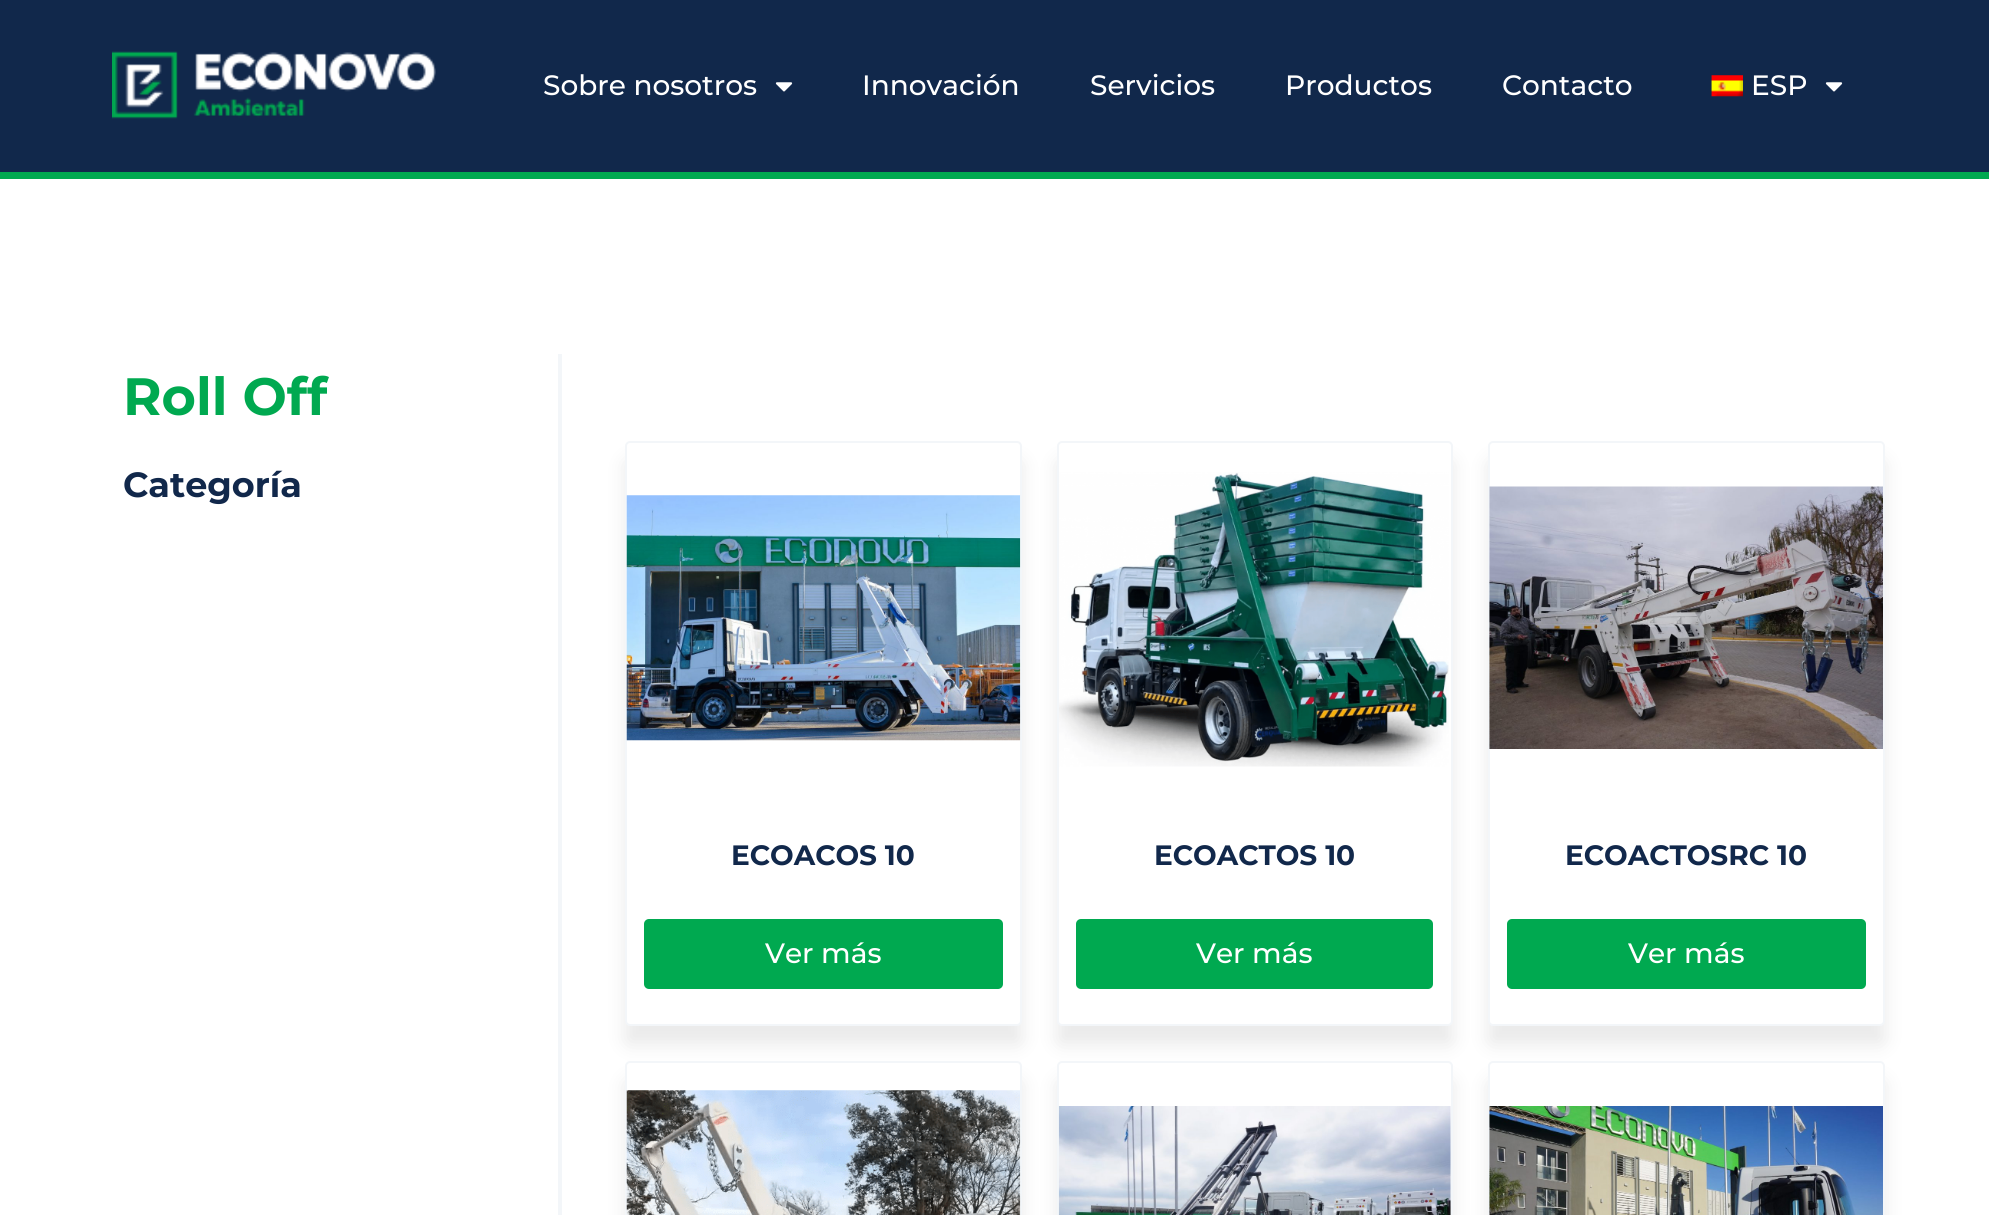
import math
import cairo


def round_path(ctx, x, y, w, h, r):
	ctx.new_sub_path()
	for i, (u, v) in enumerate([(x + w - r, y + h - r), (x + r, y + h - r), (x + r, y + r), (x + w - r, y + r)]):
		ctx.arc(u, v, r, i * math.pi / 2, (i + 1) * math.pi / 2)
	ctx.close_path()

def blur_box(ctx, x, y, w, h, r, blur, alpha):
	ctx.push_group_with_content(cairo.CONTENT_ALPHA)
	ctx.set_operator(cairo.OPERATOR_SOURCE)
	for i in range(15, -16, -2):
		e = blur * i / 6
		if min(w, h) + 2 * e > 0:
			ctx.set_source_rgba(0, 0, 0, alpha * math.erfc((i - 1) / 8.5) / 2)
			round_path(ctx, x - e, y - e, w + 2 * e, h + 2 * e, max(0, min(r + e + blur * .6, min(w, h) / 2 + e)))
			ctx.fill()
	ctx.mask(ctx.pop_group())

def paste(ctx, path, x, y, w, h):
	ctx.save()
	ctx.set_source_surface(cairo.ImageSurface.create_from_png(path), x, y)
	ctx.rectangle(x, y, w, h)
	ctx.fill()
	ctx.restore()

def draw(ctx):
	ctx.set_source_rgb(1, 1, 1)
	ctx.paint()
	ctx.set_source_rgb(0.067, 0.157, 0.294)
	ctx.rectangle(0, 0, 1989, 172)
	ctx.fill()
	ctx.set_source_rgb(0, 0.663, 0.314)
	ctx.rectangle(0, 172, 1989, 7)
	ctx.fill()
	paste(ctx, 'media/1.png', 112, 51, 324, 68)
	ctx.select_font_face('Montserrat Medium')
	ctx.set_font_size(28)
	ctx.set_source_rgb(1, 1, 1)
	ctx.move_to(543, 95)
	ctx.show_text('Sobre nosotros')
	paste(ctx, 'media/2.png', 775, 82, 18, 10)
	for x, y, s in [
		(862, 95, 'Innovación'),
		(1090, 95, 'Servicios'),
		(1285, 95, 'Productos'),
		(1502, 95, 'Contacto'),
	]:
		ctx.move_to(x, y)
		ctx.show_text(s)
	paste(ctx, 'media/3.png', 1711, 75, 32, 22)
	ctx.move_to(1751, 95)
	ctx.show_text('ESP')
	paste(ctx, 'media/2.png', 1825, 82, 18, 10)
	ctx.select_font_face('Montserrat', cairo.FONT_SLANT_NORMAL, cairo.FONT_WEIGHT_BOLD)
	ctx.set_font_size(52.5)
	ctx.set_source_rgb(0, 0.663, 0.314)
	ctx.move_to(123, 415)
	ctx.show_text('Roll Off')
	ctx.set_font_size(35)
	ctx.set_source_rgb(0.067, 0.157, 0.294)
	ctx.move_to(123, 497)
	ctx.show_text('Categoría')
	ctx.set_source_rgb(0.953, 0.961, 0.976)
	ctx.rectangle(558, 354, 4, 861)
	ctx.fill()
	ctx.set_source_rgb(0.851, 0.851, 0.851)
	blur_box(ctx, 625, 460, 397, 585, 5, 9, 0.55)
	ctx.set_source_rgb(1, 1, 1)
	round_path(ctx, 626, 442, 395, 583, 4)
	ctx.fill_preserve()
	ctx.set_source_rgb(0.953, 0.961, 0.976)
	ctx.stroke()
	paste(ctx, 'media/4.png', 626, 495, 395, 246)
	ctx.set_font_size(28)
	ctx.set_source_rgb(0.067, 0.157, 0.294)
	ctx.move_to(731, 865)
	ctx.show_text('ECOACOS 10')
	ctx.set_source_rgb(0, 0.663, 0.314)
	round_path(ctx, 644, 919, 359, 70, 5)
	ctx.fill()
	ctx.select_font_face('Montserrat Medium')
	ctx.set_source_rgb(1, 1, 1)
	ctx.move_to(765, 963)
	ctx.show_text('Ver más')
	ctx.set_source_rgb(0.851, 0.851, 0.851)
	blur_box(ctx, 1057, 460, 396, 585, 5, 9, 0.55)
	ctx.set_source_rgb(1, 1, 1)
	round_path(ctx, 1058, 442, 394, 583, 4)
	ctx.fill_preserve()
	ctx.set_source_rgb(0.953, 0.961, 0.976)
	ctx.stroke()
	paste(ctx, 'media/5.png', 1059, 472, 390, 295)
	ctx.select_font_face('Montserrat', cairo.FONT_SLANT_NORMAL, cairo.FONT_WEIGHT_BOLD)
	ctx.set_source_rgb(0.067, 0.157, 0.294)
	ctx.move_to(1154, 865)
	ctx.show_text('ECOACTOS 10')
	ctx.set_source_rgb(0, 0.663, 0.314)
	round_path(ctx, 1076, 919, 357, 70, 5)
	ctx.fill()
	ctx.select_font_face('Montserrat Medium')
	ctx.set_source_rgb(1, 1, 1)
	ctx.move_to(1196, 963)
	ctx.show_text('Ver más')
	ctx.set_source_rgb(0.851, 0.851, 0.851)
	blur_box(ctx, 1488, 460, 397, 585, 5, 9, 0.55)
	ctx.set_source_rgb(1, 1, 1)
	round_path(ctx, 1489, 442, 395, 583, 4)
	ctx.fill_preserve()
	ctx.set_source_rgb(0.953, 0.961, 0.976)
	ctx.stroke()
	paste(ctx, 'media/6.png', 1489, 486, 394, 263)
	ctx.select_font_face('Montserrat', cairo.FONT_SLANT_NORMAL, cairo.FONT_WEIGHT_BOLD)
	ctx.set_source_rgb(0.067, 0.157, 0.294)
	ctx.move_to(1565, 865)
	ctx.show_text('ECOACTOSRC 10')
	ctx.set_source_rgb(0, 0.663, 0.314)
	round_path(ctx, 1507, 919, 359, 70, 5)
	ctx.fill()
	ctx.select_font_face('Montserrat Medium')
	ctx.set_source_rgb(1, 1, 1)
	ctx.move_to(1628, 963)
	ctx.show_text('Ver más')
	ctx.save()
	ctx.set_fill_rule(cairo.FILL_RULE_EVEN_ODD)
	ctx.new_path()
	ctx.move_to(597, 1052)
	ctx.line_to(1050, 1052)
	ctx.line_to(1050, 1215)
	ctx.line_to(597, 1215)
	ctx.close_path()
	ctx.move_to(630, 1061)
	ctx.line_to(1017, 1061)
	ctx.curve_to(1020, 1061, 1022, 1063, 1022, 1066)
	ctx.line_to(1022, 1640)
	ctx.curve_to(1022, 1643, 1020, 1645, 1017, 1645)
	ctx.line_to(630, 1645)
	ctx.curve_to(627, 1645, 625, 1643, 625, 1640)
	ctx.line_to(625, 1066)
	ctx.curve_to(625, 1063, 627, 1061, 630, 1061)
	ctx.close_path()
	ctx.clip()
	ctx.set_source_rgb(0.851, 0.851, 0.851)
	blur_box(ctx, 625, 1080, 397, 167, 5, 9, 0.55)
	ctx.restore()
	round_path(ctx, 626, 1062, 395, 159, 4)
	ctx.set_source_rgb(0.953, 0.961, 0.976)
	ctx.stroke()
	paste(ctx, 'media/7.png', 626, 1090, 395, 125)
	ctx.set_source_rgb(0.851, 0.851, 0.851)
	blur_box(ctx, 1057, 1080, 396, 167, 5, 9, 0.55)
	ctx.set_source_rgb(1, 1, 1)
	round_path(ctx, 1058, 1062, 394, 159, 4)
	ctx.fill_preserve()
	ctx.set_source_rgb(0.953, 0.961, 0.976)
	ctx.stroke()
	paste(ctx, 'media/8.png', 1058, 1106, 393, 109)
	ctx.set_source_rgb(0.851, 0.851, 0.851)
	blur_box(ctx, 1488, 1080, 397, 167, 5, 9, 0.55)
	ctx.set_source_rgb(1, 1, 1)
	round_path(ctx, 1489, 1062, 395, 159, 4)
	ctx.fill_preserve()
	ctx.set_source_rgb(0.953, 0.961, 0.976)
	ctx.stroke()
	paste(ctx, 'media/9.png', 1489, 1106, 394, 109)


surface = cairo.ImageSurface(cairo.FORMAT_RGB24, 1989, 1215)
ctx = cairo.Context(surface)
options = cairo.FontOptions()
options.set_hint_metrics(cairo.HINT_METRICS_OFF)
options.set_hint_style(cairo.HINT_STYLE_NONE)
ctx.set_font_options(options)
ctx.set_miter_limit(4)
draw(ctx)
surface.write_to_png('image.png')
